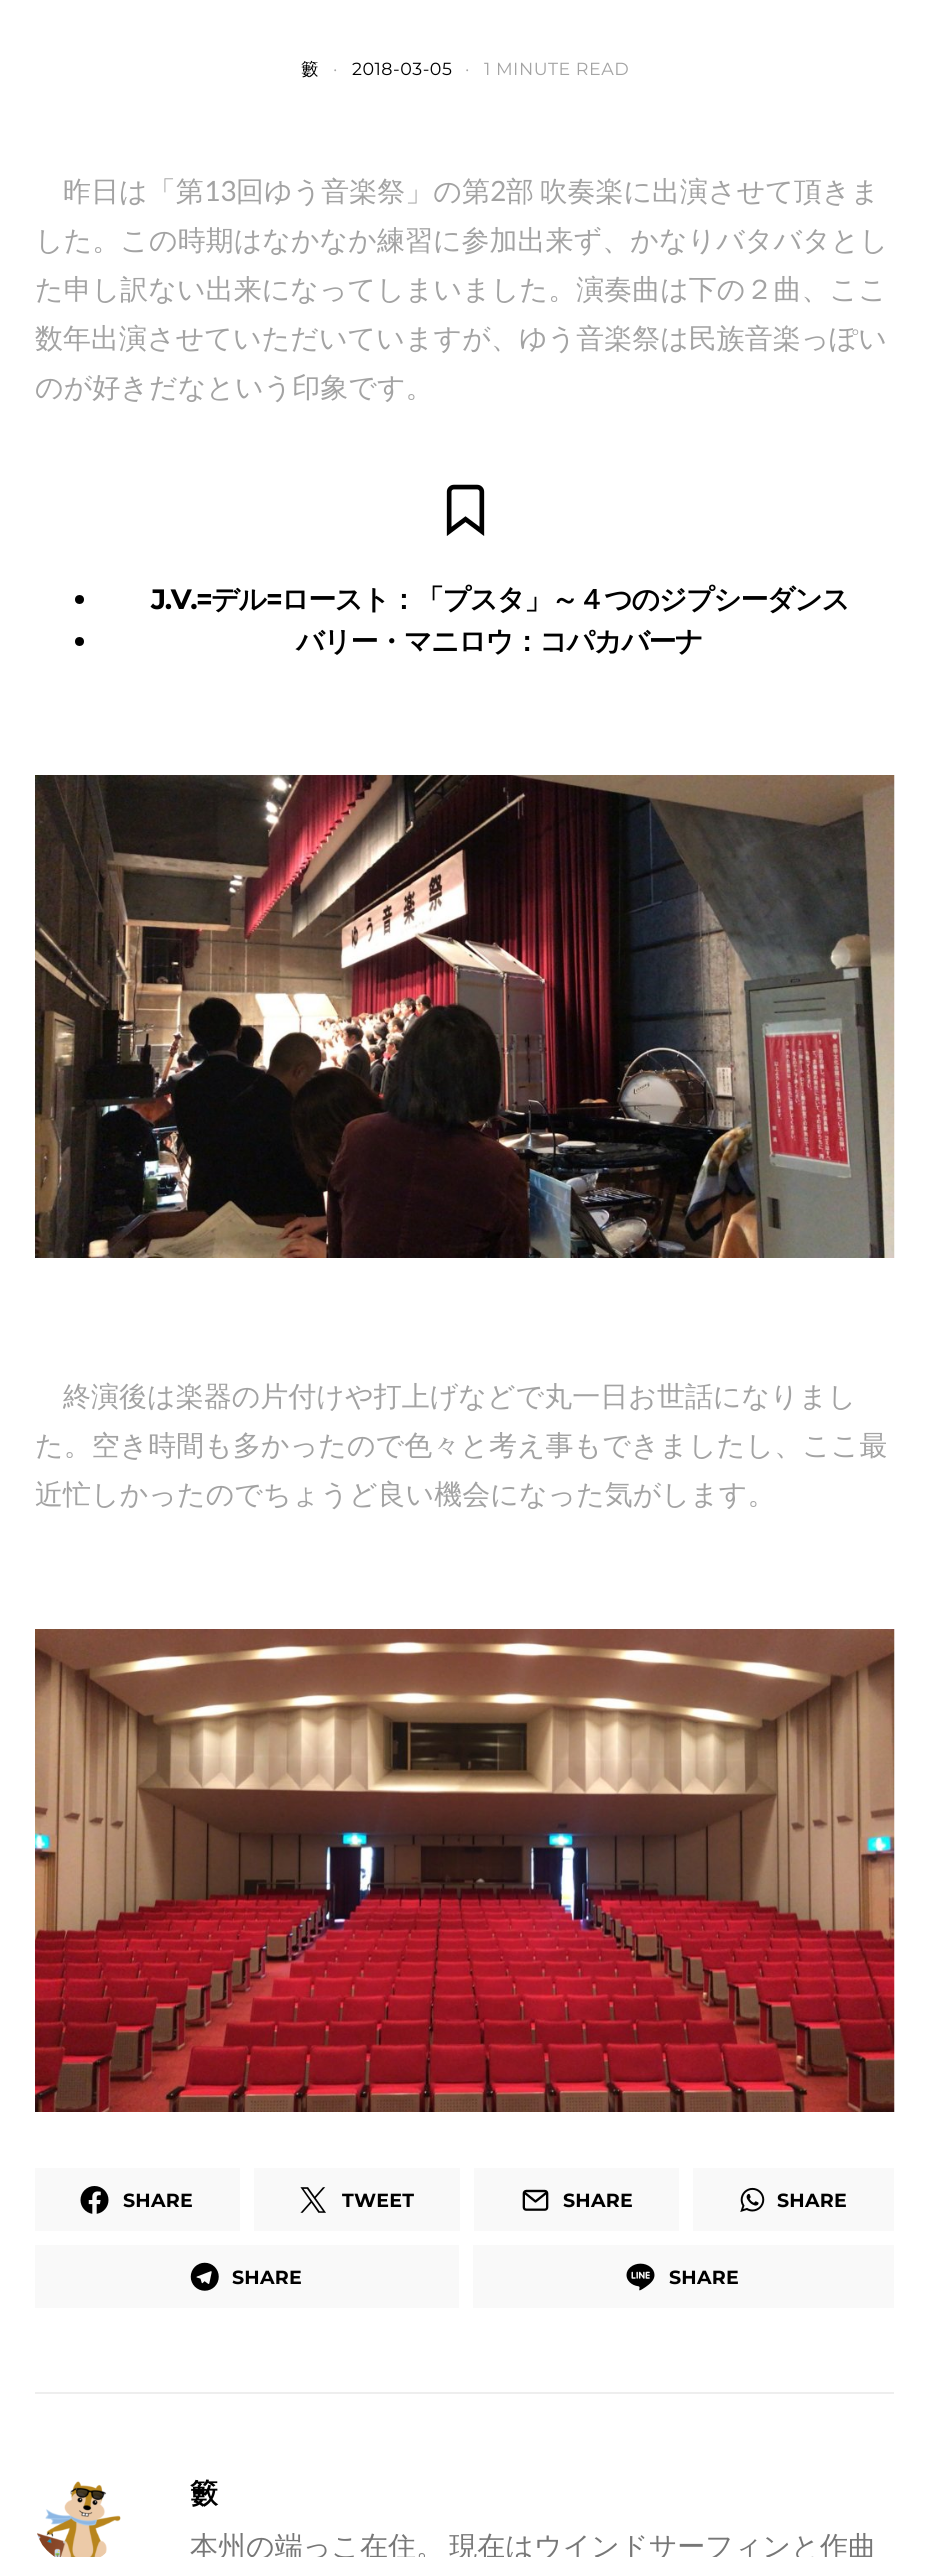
import math
import cairo


def write_spaced(ctx, x, y, s, letter, word):
	ctx.move_to(x, y)
	for ch in s:
		ctx.show_text(ch)
		ctx.rel_move_to(letter + word * (ch == ' '), 0)

def paste(ctx, path, x, y, w, h):
	ctx.save()
	ctx.set_source_surface(cairo.ImageSurface.create_from_png(path), x, y)
	ctx.rectangle(x, y, w, h)
	ctx.fill()
	ctx.restore()

def draw(ctx):
	ctx.set_source_rgb(1, 1, 1)
	ctx.paint()
	ctx.select_font_face('WenQuanYi Zen Hei Medium')
	ctx.set_font_size(17.5)
	ctx.set_source_rgb(0, 0, 0)
	write_spaced(ctx, 301, 75, '籔', 0.5, 0)
	ctx.select_font_face('Montserrat')
	ctx.set_source_rgb(0.639, 0.639, 0.639)
	write_spaced(ctx, 333, 75, '·', 0.5, 0)
	ctx.set_source_rgb(0, 0, 0)
	write_spaced(ctx, 352, 75, '2018-03-05', 0.5, 0)
	ctx.set_source_rgb(0.639, 0.639, 0.639)
	write_spaced(ctx, 465, 75, '·', 0.5, 0)
	write_spaced(ctx, 484, 75, '1 MINUTE READ', 0.5, 0)
	ctx.select_font_face('WenQuanYi Zen Hei Medium')
	ctx.set_font_size(28)
	ctx.move_to(63, 201)
	ctx.show_text('昨日は「第')
	ctx.select_font_face('Lato')
	ctx.move_to(204, 201)
	ctx.show_text('13')
	ctx.select_font_face('WenQuanYi Zen Hei Medium')
	ctx.move_to(236, 201)
	ctx.show_text('回ゆう音楽祭」の第')
	ctx.select_font_face('Lato')
	ctx.move_to(490, 201)
	ctx.show_text('2')
	ctx.select_font_face('WenQuanYi Zen Hei Medium')
	write_spaced(ctx, 506, 201, '部 吹奏楽に出演させて頂きま', 0, -3)
	for x, y, s in [
		(35, 250, 'した。この時期はなかなか練習に参加出来ず、かなりバタバタとし'),
		(35, 299, 'た申し訳ない出来になってしまいました。演奏曲は下の２曲、ここ'),
		(35, 348, '数年出演させていただいていますが、ゆう音楽祭は民族音楽っぽい'),
		(35, 397, 'のが好きだなという印象です。'),
	]:
		ctx.move_to(x, y)
		ctx.show_text(s)
	paste(ctx, 'media/1.png', 446, 484, 39, 52)
	ctx.set_source_rgb(0, 0, 0)
	ctx.arc(79.5, 599.5, 4.5, 0, 2 * math.pi)
	ctx.fill()
	ctx.select_font_face('Montserrat', cairo.FONT_SLANT_NORMAL, cairo.FONT_WEIGHT_BOLD)
	write_spaced(ctx, 151, 609, 'J.V.=', -1.4, 0)
	ctx.select_font_face('WenQuanYi Zen Hei', cairo.FONT_SLANT_NORMAL, cairo.FONT_WEIGHT_BOLD)
	write_spaced(ctx, 211, 609, 'デル', -1.4, 0)
	ctx.select_font_face('Montserrat', cairo.FONT_SLANT_NORMAL, cairo.FONT_WEIGHT_BOLD)
	write_spaced(ctx, 266, 609, '=', -1.4, 0)
	ctx.select_font_face('WenQuanYi Zen Hei', cairo.FONT_SLANT_NORMAL, cairo.FONT_WEIGHT_BOLD)
	write_spaced(ctx, 281, 609, 'ロースト：「プスタ」～４つのジプシーダンス', -1.4, 0)
	ctx.new_path()
	ctx.arc(79.5, 641.5, 4.5, 0, 2 * math.pi)
	ctx.fill()
	write_spaced(ctx, 296, 651, 'バリー・マニロウ：コパカバーナ', -1.4, 0)
	paste(ctx, 'media/2.png', 35, 775, 860, 483)
	ctx.select_font_face('WenQuanYi Zen Hei Medium')
	ctx.set_source_rgb(0.639, 0.639, 0.639)
	for x, y, s in [
		(63, 1406, '終演後は楽器の片付けや打上げなどで丸一日お世話になりまし'),
		(35, 1455, 'た。空き時間も多かったので色々と考え事もできましたし、ここ最'),
		(35, 1504, '近忙しかったのでちょうど良い機会になった気がします。'),
	]:
		ctx.move_to(x, y)
		ctx.show_text(s)
	paste(ctx, 'media/3.png', 35, 1629, 860, 483)
	ctx.set_source_rgb(0.973, 0.973, 0.973)
	ctx.rectangle(35, 2168, 205, 63)
	ctx.fill()
	paste(ctx, 'media/4.png', 80, 2186, 29, 28)
	ctx.select_font_face('Montserrat', cairo.FONT_SLANT_NORMAL, cairo.FONT_WEIGHT_BOLD)
	ctx.set_font_size(19)
	ctx.set_source_rgb(0, 0, 0)
	write_spaced(ctx, 123, 2207, 'SHARE', 0.25, 0)
	ctx.set_source_rgb(0.973, 0.973, 0.973)
	ctx.rectangle(254, 2168, 206, 63)
	ctx.fill()
	paste(ctx, 'media/5.png', 300, 2187, 26, 26)
	ctx.set_source_rgb(0, 0, 0)
	write_spaced(ctx, 342, 2207, 'TWEET', 0.25, 0)
	ctx.set_source_rgb(0.973, 0.973, 0.973)
	ctx.rectangle(474, 2168, 205, 63)
	ctx.fill()
	paste(ctx, 'media/6.png', 522, 2189, 27, 22)
	ctx.set_source_rgb(0, 0, 0)
	write_spaced(ctx, 563, 2207, 'SHARE', 0.25, 0)
	ctx.set_source_rgb(0.973, 0.973, 0.973)
	ctx.rectangle(693, 2168, 201, 63)
	ctx.fill()
	paste(ctx, 'media/7.png', 740, 2187, 25, 25)
	ctx.set_source_rgb(0, 0, 0)
	write_spaced(ctx, 777, 2207, 'SHARE', 0.25, 0)
	ctx.set_source_rgb(0.973, 0.973, 0.973)
	ctx.rectangle(35, 2245, 424, 63)
	ctx.fill()
	paste(ctx, 'media/8.png', 190, 2262, 29, 29)
	ctx.set_source_rgb(0, 0, 0)
	write_spaced(ctx, 232, 2284, 'SHARE', 0.25, 0)
	ctx.set_source_rgb(0.973, 0.973, 0.973)
	ctx.rectangle(473, 2245, 421, 63)
	ctx.fill()
	paste(ctx, 'media/9.png', 626, 2263, 29, 28)
	ctx.set_source_rgb(0, 0, 0)
	write_spaced(ctx, 669, 2284, 'SHARE', 0.25, 0)
	ctx.set_source_rgb(0.933, 0.933, 0.933)
	ctx.rectangle(35, 2392, 859, 2)
	ctx.fill()
	paste(ctx, 'media/10.png', 37, 2481, 84, 76)
	ctx.select_font_face('WenQuanYi Zen Hei', cairo.FONT_SLANT_NORMAL, cairo.FONT_WEIGHT_BOLD)
	ctx.set_font_size(28)
	ctx.set_source_rgb(0, 0, 0)
	write_spaced(ctx, 190, 2503, '籔', -1, 0)
	ctx.select_font_face('WenQuanYi Zen Hei Medium')
	ctx.set_source_rgb(0.467, 0.467, 0.467)
	write_spaced(ctx, 190, 2556, '本州の端っこ在住。 現在はウインドサーフィンと作曲', 0, -3)


surface = cairo.ImageSurface(cairo.FORMAT_RGB24, 928, 2557)
ctx = cairo.Context(surface)
options = cairo.FontOptions()
options.set_hint_metrics(cairo.HINT_METRICS_OFF)
options.set_hint_style(cairo.HINT_STYLE_NONE)
ctx.set_font_options(options)
ctx.set_miter_limit(4)
draw(ctx)
surface.write_to_png('image.png')
